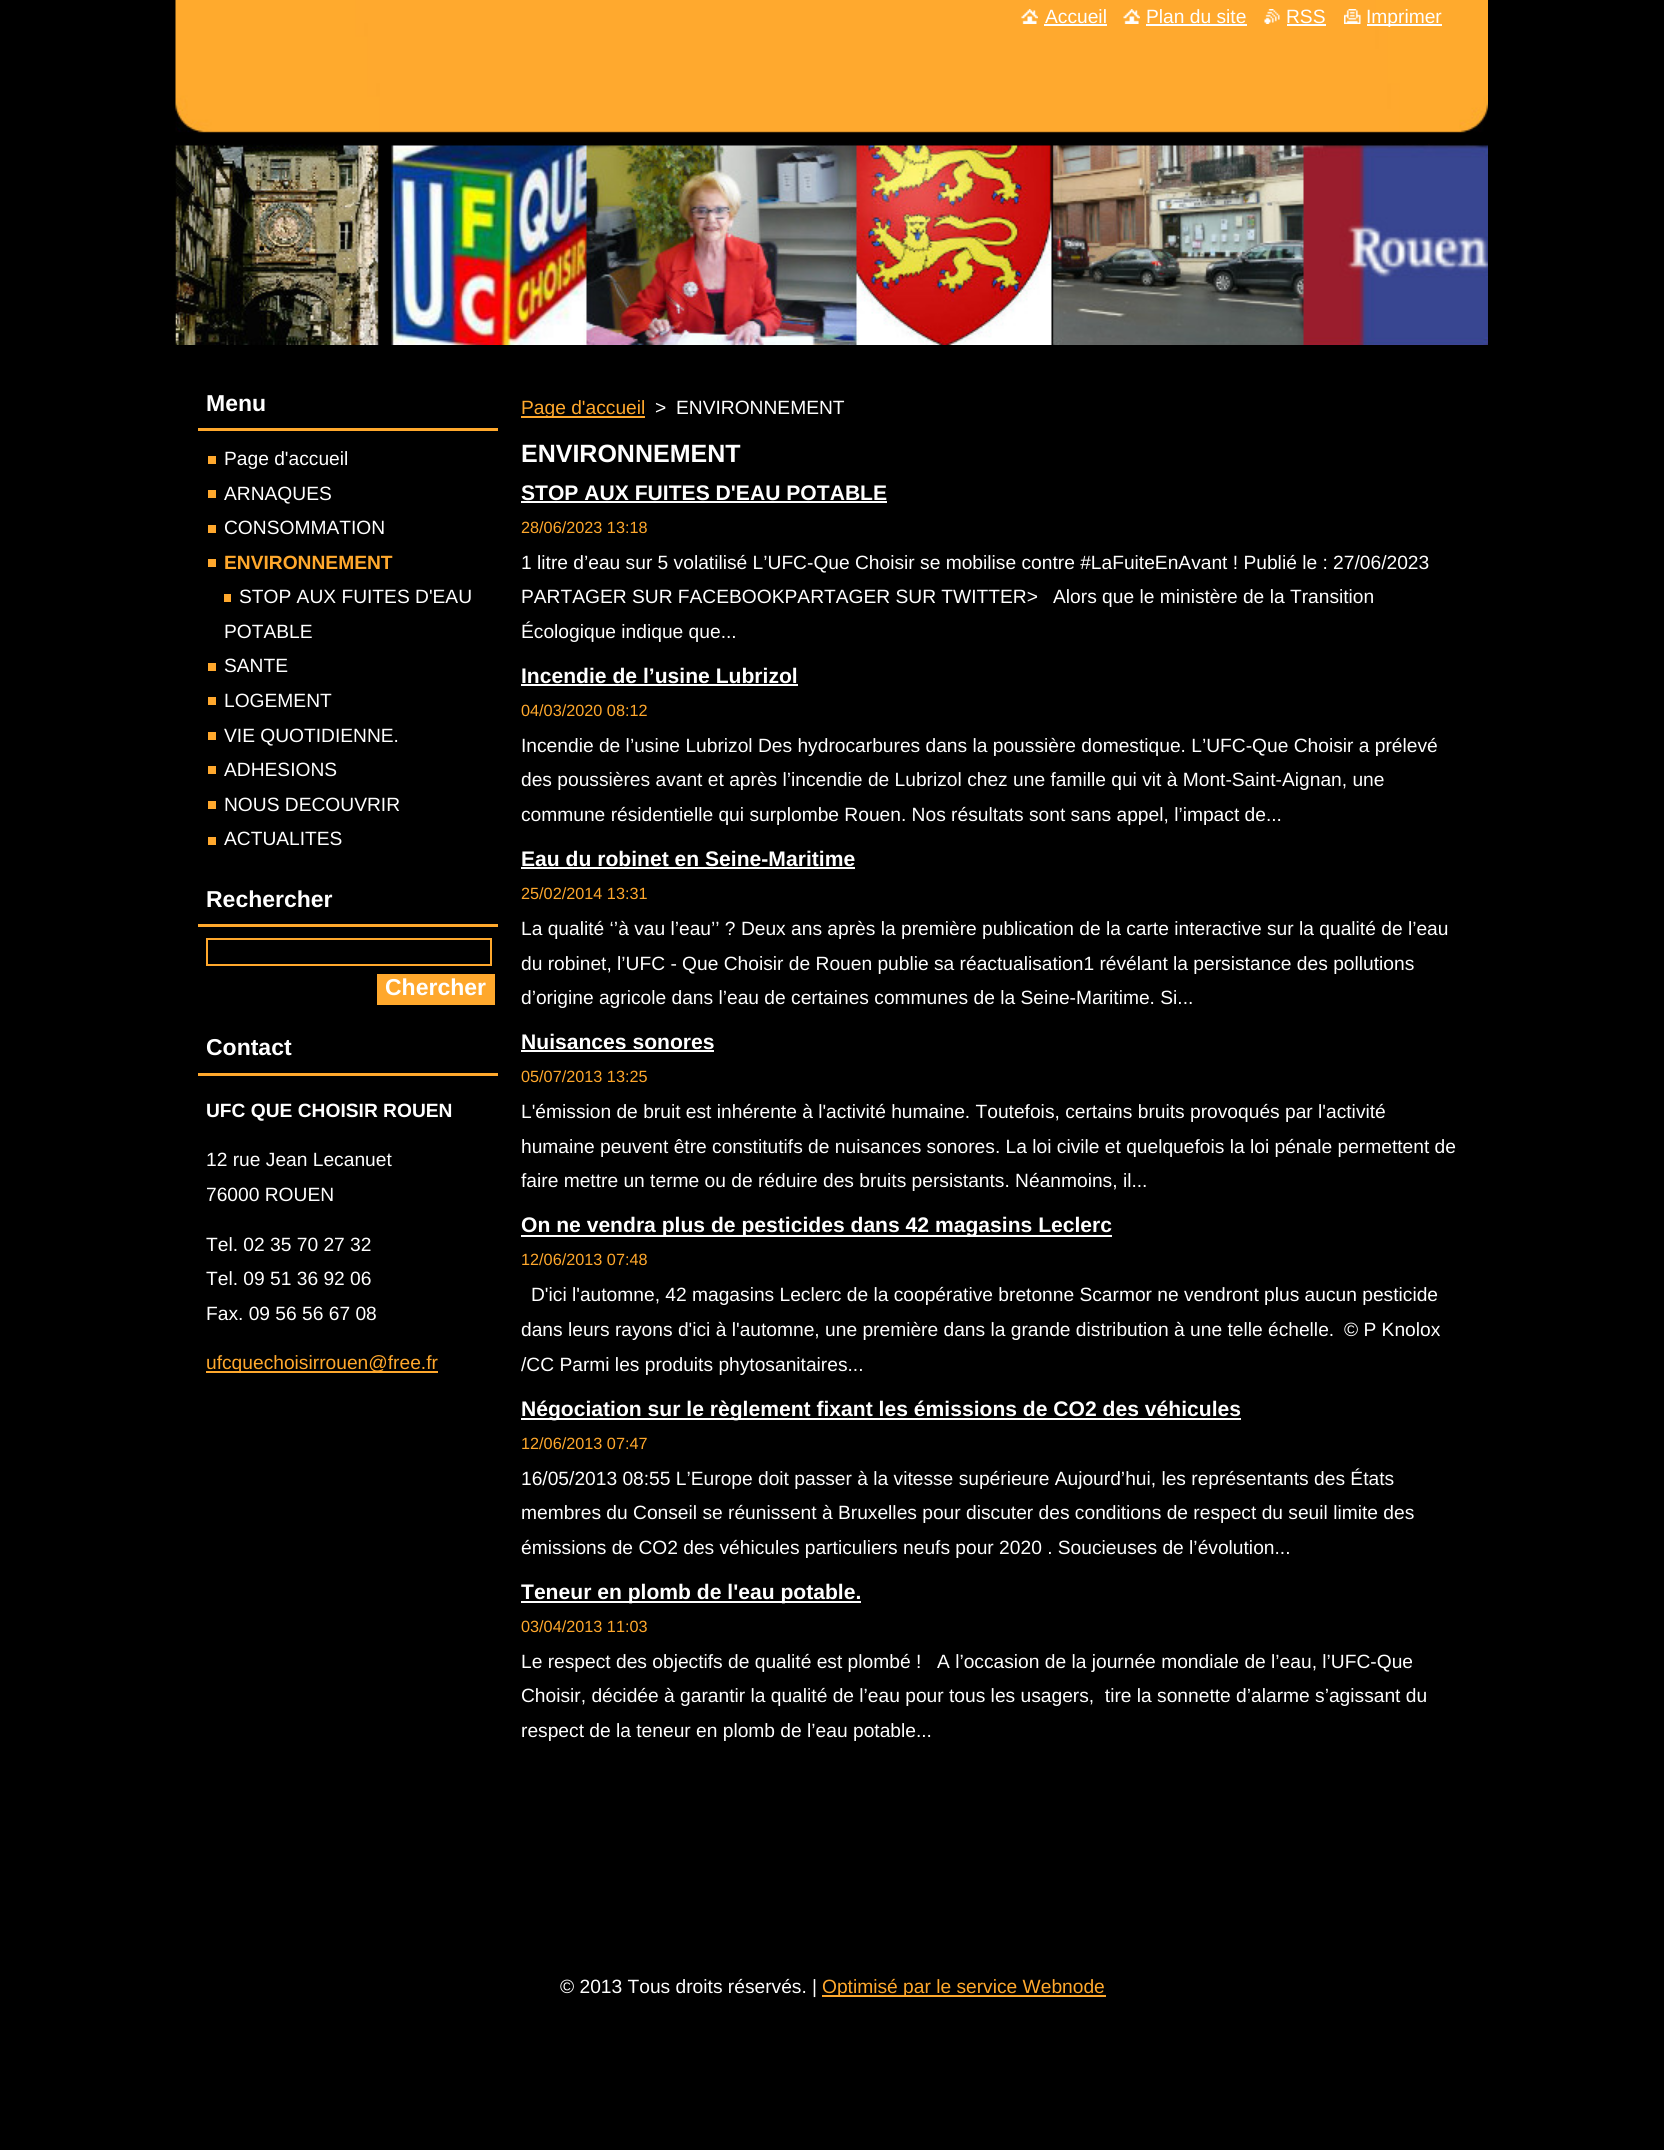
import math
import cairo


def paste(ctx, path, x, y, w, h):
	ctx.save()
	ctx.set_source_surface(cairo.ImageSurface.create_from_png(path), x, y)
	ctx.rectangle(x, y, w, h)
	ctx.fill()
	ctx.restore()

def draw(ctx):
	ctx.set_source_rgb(0, 0, 0)
	ctx.paint()
	paste(ctx, 'media/1.png', 175, 0, 1313, 147)
	paste(ctx, 'media/2.png', 175, 145, 1313, 200)
	paste(ctx, 'media/3.png', 1021, 9, 17, 15)
	ctx.select_font_face('Liberation Sans')
	ctx.set_font_size(19.2)
	ctx.set_source_rgb(1, 1, 1)
	ctx.move_to(1045, 23)
	ctx.show_text('Accueil')
	ctx.rectangle(1044, 24, 63, 2)
	ctx.fill()
	paste(ctx, 'media/4.png', 1123, 9, 17, 15)
	ctx.move_to(1146, 23)
	ctx.show_text('Plan du site')
	ctx.rectangle(1146, 24, 101, 2)
	ctx.fill()
	paste(ctx, 'media/5.png', 1264, 9, 16, 15)
	ctx.move_to(1286, 23)
	ctx.show_text('RSS')
	ctx.rectangle(1287, 24, 39, 2)
	ctx.fill()
	paste(ctx, 'media/6.png', 1344, 9, 17, 15)
	ctx.rectangle(1367, 24, 75, 2)
	ctx.fill()
	ctx.move_to(1366, 23)
	ctx.show_text('Imprimer')
	ctx.set_source_rgb(1, 0.659, 0.173)
	ctx.rectangle(198, 428, 300, 3)
	ctx.fill()
	ctx.select_font_face('Liberation Sans', cairo.FONT_SLANT_NORMAL, cairo.FONT_WEIGHT_BOLD)
	ctx.set_font_size(23)
	ctx.set_source_rgb(1, 1, 1)
	ctx.move_to(206, 411)
	ctx.show_text('Menu')
	ctx.select_font_face('Liberation Sans')
	ctx.set_font_size(19.2)
	ctx.move_to(224, 465)
	ctx.show_text('Page d\'accueil')
	ctx.set_source_rgb(1, 0.659, 0.176)
	ctx.rectangle(208, 456, 8, 8)
	ctx.fill()
	ctx.set_source_rgb(1, 1, 1)
	ctx.move_to(224, 500)
	ctx.show_text('ARNAQUES')
	ctx.set_source_rgb(1, 0.659, 0.176)
	ctx.rectangle(208, 490, 8, 8)
	ctx.fill()
	ctx.set_source_rgb(1, 1, 1)
	ctx.move_to(224, 534)
	ctx.show_text('CONSOMMATION')
	ctx.set_source_rgb(1, 0.659, 0.176)
	ctx.rectangle(208, 525, 8, 8)
	ctx.fill()
	ctx.select_font_face('Liberation Sans', cairo.FONT_SLANT_NORMAL, cairo.FONT_WEIGHT_BOLD)
	ctx.set_source_rgb(1, 0.659, 0.173)
	ctx.move_to(224, 569)
	ctx.show_text('ENVIRONNEMENT')
	ctx.set_source_rgb(1, 0.659, 0.176)
	ctx.rectangle(208, 559, 8, 8)
	ctx.fill()
	ctx.select_font_face('Liberation Sans')
	ctx.set_source_rgb(1, 1, 1)
	ctx.move_to(239, 603)
	ctx.show_text('STOP AUX FUITES D\'EAU')
	ctx.set_source_rgb(1, 0.659, 0.176)
	ctx.rectangle(224, 594, 7, 8)
	ctx.fill()
	ctx.set_source_rgb(1, 1, 1)
	ctx.move_to(224, 638)
	ctx.show_text('POTABLE')
	ctx.move_to(224, 672)
	ctx.show_text('SANTE')
	ctx.set_source_rgb(1, 0.659, 0.176)
	ctx.rectangle(208, 663, 8, 8)
	ctx.fill()
	ctx.set_source_rgb(1, 1, 1)
	ctx.move_to(224, 707)
	ctx.show_text('LOGEMENT')
	ctx.set_source_rgb(1, 0.659, 0.176)
	ctx.rectangle(208, 697, 8, 8)
	ctx.fill()
	ctx.set_source_rgb(1, 1, 1)
	ctx.move_to(224, 742)
	ctx.show_text('VIE QUOTIDIENNE.')
	ctx.set_source_rgb(1, 0.659, 0.176)
	ctx.rectangle(208, 732, 8, 8)
	ctx.fill()
	ctx.set_source_rgb(1, 1, 1)
	ctx.move_to(224, 776)
	ctx.show_text('ADHESIONS')
	ctx.set_source_rgb(1, 0.659, 0.176)
	ctx.rectangle(208, 766, 8, 8)
	ctx.fill()
	ctx.set_source_rgb(1, 1, 1)
	ctx.move_to(224, 811)
	ctx.show_text('NOUS DECOUVRIR')
	ctx.set_source_rgb(1, 0.659, 0.176)
	ctx.rectangle(208, 801, 8, 8)
	ctx.fill()
	ctx.set_source_rgb(1, 1, 1)
	ctx.move_to(224, 845)
	ctx.show_text('ACTUALITES')
	ctx.set_source_rgb(1, 0.659, 0.176)
	ctx.rectangle(208, 837, 8, 8)
	ctx.fill()
	ctx.set_source_rgb(1, 0.659, 0.173)
	ctx.rectangle(198, 924, 300, 3)
	ctx.fill()
	ctx.select_font_face('Liberation Sans', cairo.FONT_SLANT_NORMAL, cairo.FONT_WEIGHT_BOLD)
	ctx.set_font_size(23)
	ctx.set_source_rgb(1, 1, 1)
	ctx.move_to(206, 907)
	ctx.show_text('Rechercher')
	ctx.rectangle(207, 939, 284, 26)
	ctx.set_source_rgb(1, 0.659, 0.173)
	ctx.stroke()
	ctx.rectangle(377, 974, 118, 31)
	ctx.fill()
	ctx.set_source_rgb(1, 1, 1)
	ctx.move_to(385, 995)
	ctx.show_text('Chercher')
	ctx.set_source_rgb(1, 0.659, 0.173)
	ctx.rectangle(198, 1073, 300, 3)
	ctx.fill()
	ctx.set_source_rgb(1, 1, 1)
	ctx.move_to(206, 1055)
	ctx.show_text('Contact')
	ctx.set_font_size(19.2)
	ctx.move_to(206, 1117)
	ctx.show_text('UFC QUE CHOISIR ROUEN')
	ctx.select_font_face('Liberation Sans')
	for x, y, s in [
		(206, 1166, '12 rue Jean Lecanuet'),
		(206, 1201, '76000 ROUEN'),
		(206, 1251, 'Tel. 02 35 70 27 32'),
		(206, 1285, 'Tel. 09 51 36 92 06'),
		(206, 1320, 'Fax. 09 56 56 67 08'),
	]:
		ctx.move_to(x, y)
		ctx.show_text(s)
	ctx.set_source_rgb(1, 0.659, 0.173)
	ctx.rectangle(206, 1371, 232, 2)
	ctx.fill()
	ctx.move_to(206, 1369)
	ctx.show_text('ufcquechoisirrouen@free.fr')
	ctx.rectangle(521, 416, 124, 2)
	ctx.fill()
	ctx.move_to(521, 414)
	ctx.show_text('Page d\'accueil')
	ctx.set_source_rgb(1, 1, 1)
	ctx.move_to(655, 414)
	ctx.show_text('>')
	ctx.move_to(676, 414)
	ctx.show_text('ENVIRONNEMENT')
	ctx.select_font_face('Liberation Sans', cairo.FONT_SLANT_NORMAL, cairo.FONT_WEIGHT_BOLD)
	ctx.set_font_size(25)
	ctx.move_to(521, 462)
	ctx.show_text('ENVIRONNEMENT')
	ctx.set_font_size(21.1)
	ctx.move_to(521, 500)
	ctx.show_text('STOP AUX FUITES D\'EAU POTABLE')
	ctx.rectangle(521, 501, 366, 2)
	ctx.fill()
	ctx.select_font_face('Liberation Sans')
	ctx.set_font_size(16.25)
	ctx.set_source_rgb(1, 0.659, 0.173)
	ctx.move_to(521, 533)
	ctx.show_text('28/06/2023 13:18')
	ctx.set_font_size(19.2)
	ctx.set_source_rgb(1, 1, 1)
	for x, y, s in [
		(521, 569, '1 litre d’eau sur 5 volatilisé L’UFC-Que Choisir se mobilise contre #LaFuiteEnAvant ! Publié le : 27/06/2023'),
		(521, 603, 'PARTAGER SUR FACEBOOKPARTAGER SUR TWITTER>'),
		(1053, 603, 'Alors que le ministère de la Transition'),
		(521, 638, 'Écologique indique que...'),
	]:
		ctx.move_to(x, y)
		ctx.show_text(s)
	ctx.select_font_face('Liberation Sans', cairo.FONT_SLANT_NORMAL, cairo.FONT_WEIGHT_BOLD)
	ctx.set_font_size(21.1)
	ctx.move_to(521, 683)
	ctx.show_text('Incendie de l’usine Lubrizol')
	ctx.rectangle(521, 684, 277, 2)
	ctx.fill()
	ctx.select_font_face('Liberation Sans')
	ctx.set_font_size(16.25)
	ctx.set_source_rgb(1, 0.659, 0.173)
	ctx.move_to(521, 716)
	ctx.show_text('04/03/2020 08:12')
	ctx.set_font_size(19.2)
	ctx.set_source_rgb(1, 1, 1)
	for x, y, s in [
		(521, 752, 'Incendie de l’usine Lubrizol Des hydrocarbures dans la poussière domestique. L’UFC-Que Choisir a prélevé'),
		(521, 786, 'des poussières avant et après l’incendie de Lubrizol chez une famille qui vit à Mont-Saint-Aignan, une'),
		(521, 821, 'commune résidentielle qui surplombe Rouen. Nos résultats sont sans appel, l’impact de...'),
	]:
		ctx.move_to(x, y)
		ctx.show_text(s)
	ctx.select_font_face('Liberation Sans', cairo.FONT_SLANT_NORMAL, cairo.FONT_WEIGHT_BOLD)
	ctx.set_font_size(21.1)
	ctx.move_to(521, 866)
	ctx.show_text('Eau du robinet en Seine-Maritime')
	ctx.rectangle(521, 867, 334, 2)
	ctx.fill()
	ctx.select_font_face('Liberation Sans')
	ctx.set_font_size(16.25)
	ctx.set_source_rgb(1, 0.659, 0.173)
	ctx.move_to(521, 899)
	ctx.show_text('25/02/2014 13:31')
	ctx.set_font_size(19.2)
	ctx.set_source_rgb(1, 1, 1)
	for x, y, s in [
		(521, 935, 'La qualité ‘’à vau l’eau’’ ? Deux ans après la première publication de la carte interactive sur la qualité de l’eau'),
		(521, 970, 'du robinet, l’UFC - Que Choisir de Rouen publie sa réactualisation1 révélant la persistance des pollutions'),
		(521, 1004, 'd’origine agricole dans l’eau de certaines communes de la Seine-Maritime. Si...'),
	]:
		ctx.move_to(x, y)
		ctx.show_text(s)
	ctx.select_font_face('Liberation Sans', cairo.FONT_SLANT_NORMAL, cairo.FONT_WEIGHT_BOLD)
	ctx.set_font_size(21.1)
	ctx.move_to(521, 1049)
	ctx.show_text('Nuisances sonores')
	ctx.rectangle(521, 1050, 193, 2)
	ctx.fill()
	ctx.select_font_face('Liberation Sans')
	ctx.set_font_size(16.25)
	ctx.set_source_rgb(1, 0.659, 0.173)
	ctx.move_to(521, 1082)
	ctx.show_text('05/07/2013 13:25')
	ctx.set_font_size(19.2)
	ctx.set_source_rgb(1, 1, 1)
	for x, y, s in [
		(521, 1118, 'L\'émission de bruit est inhérente à l\'activité humaine. Toutefois, certains bruits provoqués par l\'activité'),
		(521, 1153, 'humaine peuvent être constitutifs de nuisances sonores. La loi civile et quelquefois la loi pénale permettent de'),
		(521, 1187, 'faire mettre un terme ou de réduire des bruits persistants. Néanmoins, il...'),
	]:
		ctx.move_to(x, y)
		ctx.show_text(s)
	ctx.rectangle(521, 1235, 591, 2)
	ctx.fill()
	ctx.select_font_face('Liberation Sans', cairo.FONT_SLANT_NORMAL, cairo.FONT_WEIGHT_BOLD)
	ctx.set_font_size(21.1)
	ctx.move_to(521, 1232)
	ctx.show_text('On ne vendra plus de pesticides dans 42 magasins Leclerc')
	ctx.select_font_face('Liberation Sans')
	ctx.set_font_size(16.25)
	ctx.set_source_rgb(1, 0.659, 0.173)
	ctx.move_to(521, 1265)
	ctx.show_text('12/06/2013 07:48')
	ctx.set_font_size(19.2)
	ctx.set_source_rgb(1, 1, 1)
	for x, y, s in [
		(531, 1301, 'D\'ici l\'automne, 42 magasins Leclerc de la coopérative bretonne Scarmor ne vendront plus aucun pesticide'),
		(521, 1336, 'dans leurs rayons d\'ici à l\'automne, une première dans la grande distribution à une telle échelle.'),
		(1344, 1336, '© P Knolox'),
		(521, 1371, '/CC Parmi les produits phytosanitaires...'),
	]:
		ctx.move_to(x, y)
		ctx.show_text(s)
	ctx.rectangle(521, 1418, 720, 2)
	ctx.fill()
	ctx.select_font_face('Liberation Sans', cairo.FONT_SLANT_NORMAL, cairo.FONT_WEIGHT_BOLD)
	ctx.set_font_size(21.1)
	ctx.move_to(521, 1416)
	ctx.show_text('Négociation sur le règlement fixant les émissions de CO2 des véhicules')
	ctx.select_font_face('Liberation Sans')
	ctx.set_font_size(16.25)
	ctx.set_source_rgb(1, 0.659, 0.173)
	ctx.move_to(521, 1449)
	ctx.show_text('12/06/2013 07:47')
	ctx.set_font_size(19.2)
	ctx.set_source_rgb(1, 1, 1)
	for x, y, s in [
		(521, 1485, '16/05/2013 08:55 L’Europe doit passer à la vitesse supérieure Aujourd’hui, les représentants des États'),
		(521, 1519, 'membres du Conseil se réunissent à Bruxelles pour discuter des conditions de respect du seuil limite des'),
		(521, 1554, 'émissions de CO2 des véhicules particuliers neufs pour 2020 . Soucieuses de l’évolution...'),
	]:
		ctx.move_to(x, y)
		ctx.show_text(s)
	ctx.rectangle(521, 1601, 340, 2)
	ctx.fill()
	ctx.save()
	ctx.rectangle(521, 480, 937, 1283)
	ctx.clip()
	ctx.select_font_face('Liberation Sans', cairo.FONT_SLANT_NORMAL, cairo.FONT_WEIGHT_BOLD)
	ctx.set_font_size(21.1)
	ctx.move_to(521, 1599)
	ctx.show_text('Teneur en plomb de l\'eau potable.')
	ctx.restore()
	ctx.set_font_size(16.25)
	ctx.set_source_rgb(1, 0.659, 0.173)
	ctx.move_to(521, 1632)
	ctx.show_text('03/04/2013 11:03')
	ctx.set_font_size(19.2)
	ctx.set_source_rgb(1, 1, 1)
	for x, y, s in [
		(521, 1668, 'Le respect des objectifs de qualité est plombé !'),
		(937, 1668, 'A l’occasion de la journée mondiale de l’eau, l’UFC-Que'),
		(521, 1702, 'Choisir, décidée à garantir la qualité de l’eau pour tous les usagers,  tire la sonnette d’alarme s’agissant du'),
		(521, 1737, 'respect de la teneur en plomb de l’eau potable...'),
		(560, 1993, '© 2013 Tous droits réservés. |'),
	]:
		ctx.move_to(x, y)
		ctx.show_text(s)
	ctx.set_source_rgb(1, 0.659, 0.173)
	ctx.rectangle(822, 1995, 284, 2)
	ctx.fill()
	ctx.move_to(822, 1993)
	ctx.show_text('Optimisé par le service Webnode')


surface = cairo.ImageSurface(cairo.FORMAT_RGB24, 1664, 2150)
ctx = cairo.Context(surface)
options = cairo.FontOptions()
options.set_hint_metrics(cairo.HINT_METRICS_OFF)
options.set_hint_style(cairo.HINT_STYLE_NONE)
ctx.set_font_options(options)
ctx.set_miter_limit(4)
draw(ctx)
surface.write_to_png('image.png')
